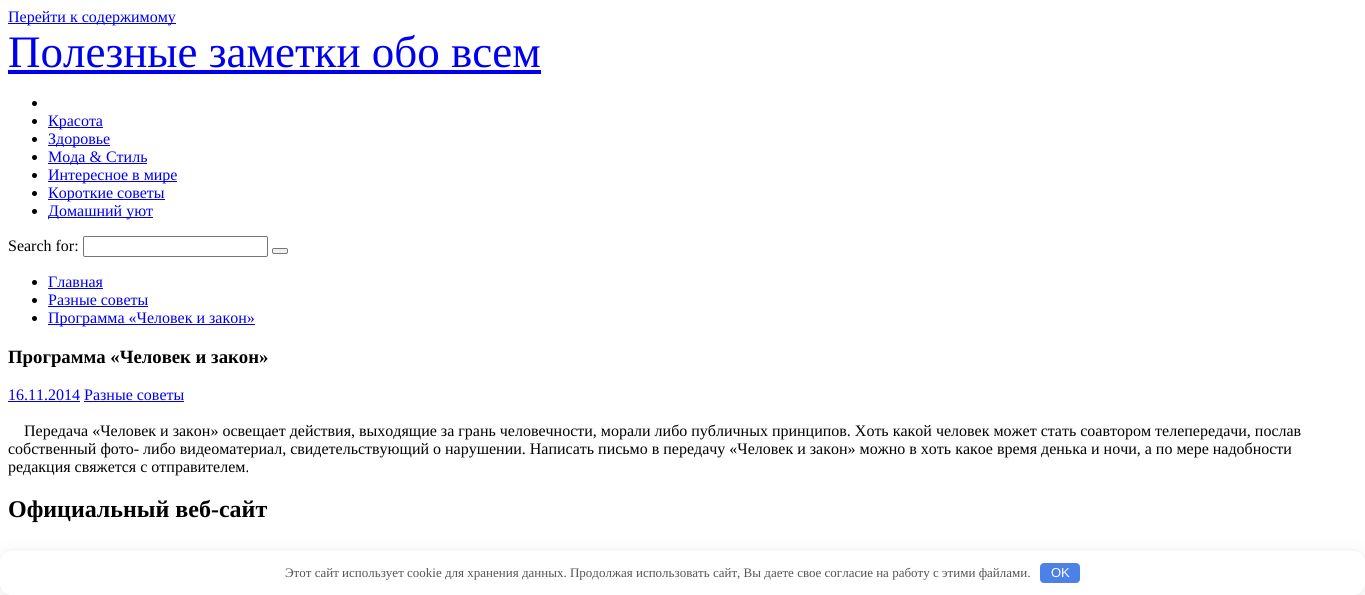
import math
import cairo


def round_path(ctx, x, y, w, h, r):
	ctx.new_sub_path()
	for i, (u, v) in enumerate([(x + w - r, y + h - r), (x + r, y + h - r), (x + r, y + r), (x + w - r, y + r)]):
		ctx.arc(u, v, r, i * math.pi / 2, (i + 1) * math.pi / 2)
	ctx.close_path()

def blur_box(ctx, x, y, w, h, r, blur, alpha):
	ctx.push_group_with_content(cairo.CONTENT_ALPHA)
	ctx.set_operator(cairo.OPERATOR_SOURCE)
	for i in range(15, -16, -2):
		e = blur * i / 6
		if min(w, h) + 2 * e > 0:
			ctx.set_source_rgba(0, 0, 0, alpha * math.erfc((i - 1) / 8.5) / 2)
			round_path(ctx, x - e, y - e, w + 2 * e, h + 2 * e, max(0, min(r + e + blur * .6, min(w, h) / 2 + e)))
			ctx.fill()
	ctx.mask(ctx.pop_group())

def draw(ctx):
	ctx.set_source_rgb(1, 1, 1)
	ctx.paint()
	ctx.set_source_rgb(0, 0, 0.933)
	ctx.rectangle(8, 23, 168, 1)
	ctx.fill()
	ctx.select_font_face('Liberation Serif')
	ctx.set_font_size(16)
	ctx.move_to(8, 22)
	ctx.show_text('Перейти к содержимому')
	ctx.set_font_size(45)
	ctx.move_to(8, 67)
	ctx.show_text('Полезные заметки обо всем')
	ctx.rectangle(8, 70, 533, 4)
	ctx.fill()
	ctx.set_source_rgb(0, 0, 0)
	ctx.arc(34.5, 103.5, 2.5, 0, 2 * math.pi)
	ctx.fill()
	ctx.arc(34.5, 121.5, 2.5, 0, 2 * math.pi)
	ctx.fill()
	ctx.set_source_rgb(0, 0, 0.933)
	ctx.rectangle(48, 127, 55, 1)
	ctx.fill()
	ctx.set_font_size(16)
	ctx.move_to(48, 126)
	ctx.show_text('Красота')
	ctx.set_source_rgb(0, 0, 0)
	ctx.new_path()
	ctx.arc(34.5, 139.5, 2.5, 0, 2 * math.pi)
	ctx.fill()
	ctx.set_source_rgb(0, 0, 0.933)
	ctx.rectangle(48, 145, 62, 1)
	ctx.fill()
	ctx.move_to(48, 144)
	ctx.show_text('Здоровье')
	ctx.set_source_rgb(0, 0, 0)
	ctx.new_path()
	ctx.arc(34.5, 157.5, 2.5, 0, 2 * math.pi)
	ctx.fill()
	ctx.set_source_rgb(0, 0, 0.933)
	ctx.rectangle(48, 163, 99, 1)
	ctx.fill()
	ctx.move_to(48, 162)
	ctx.show_text('Мода & Стиль')
	ctx.set_source_rgb(0, 0, 0)
	ctx.new_path()
	ctx.arc(34.5, 175.5, 2.5, 0, 2 * math.pi)
	ctx.fill()
	ctx.set_source_rgb(0, 0, 0.933)
	ctx.rectangle(48, 181, 129, 1)
	ctx.fill()
	ctx.move_to(48, 180)
	ctx.show_text('Интересное в мире')
	ctx.set_source_rgb(0, 0, 0)
	ctx.new_path()
	ctx.arc(34.5, 193.5, 2.5, 0, 2 * math.pi)
	ctx.fill()
	ctx.set_source_rgb(0, 0, 0.933)
	ctx.rectangle(48, 199, 117, 1)
	ctx.fill()
	ctx.move_to(48, 198)
	ctx.show_text('Короткие советы')
	ctx.set_source_rgb(0, 0, 0)
	ctx.new_path()
	ctx.arc(34.5, 211.5, 2.5, 0, 2 * math.pi)
	ctx.fill()
	ctx.set_source_rgb(0, 0, 0.933)
	ctx.rectangle(48, 217, 105, 1)
	ctx.fill()
	ctx.move_to(48, 216)
	ctx.show_text('Домашний уют')
	ctx.set_source_rgb(0, 0, 0)
	ctx.move_to(8, 251)
	ctx.show_text('Search for:')
	round_path(ctx, 83.5, 236.5, 184, 20, 1.5)
	ctx.set_source_rgb(0.463, 0.463, 0.463)
	ctx.set_line_width(1)
	ctx.stroke()
	ctx.set_source_rgb(0.937, 0.937, 0.937)
	round_path(ctx, 272.5, 248.5, 15, 5, 1.5)
	ctx.fill_preserve()
	ctx.set_source_rgb(0.463, 0.463, 0.463)
	ctx.stroke()
	ctx.set_source_rgb(0, 0, 0)
	ctx.arc(34.5, 282.5, 2.5, 0, 2 * math.pi)
	ctx.fill()
	ctx.set_source_rgb(0, 0, 0.933)
	ctx.move_to(48, 287)
	ctx.show_text('Главная')
	ctx.rectangle(48, 288, 55, 1)
	ctx.fill()
	ctx.set_source_rgb(0, 0, 0)
	ctx.arc(34.5, 300.5, 2.5, 0, 2 * math.pi)
	ctx.fill()
	ctx.set_source_rgb(0, 0, 0.933)
	ctx.move_to(48, 305)
	ctx.show_text('Разные советы')
	ctx.rectangle(48, 306, 100, 1)
	ctx.fill()
	ctx.set_source_rgb(0, 0, 0)
	ctx.arc(34.5, 318.5, 2.5, 0, 2 * math.pi)
	ctx.fill()
	ctx.set_source_rgb(0, 0, 0.933)
	ctx.rectangle(48, 324, 207, 1)
	ctx.fill()
	ctx.move_to(48, 323)
	ctx.show_text('Программа «Человек и закон»')
	ctx.select_font_face('Liberation Serif', cairo.FONT_SLANT_NORMAL, cairo.FONT_WEIGHT_BOLD)
	ctx.set_font_size(18.75)
	ctx.set_source_rgb(0, 0, 0)
	ctx.move_to(8, 363)
	ctx.show_text('Программа «Человек и закон»')
	ctx.select_font_face('Liberation Serif')
	ctx.set_font_size(16)
	ctx.set_source_rgb(0, 0, 0.933)
	ctx.move_to(8, 400)
	ctx.show_text('16.11.2014 Разные советы')
	ctx.rectangle(8, 401, 72, 1)
	ctx.fill()
	ctx.rectangle(84, 401, 100, 1)
	ctx.fill()
	ctx.set_source_rgb(0, 0, 0)
	for x, y, s in [
		(24, 436, 'Передача «Человек и закон» освещает действия, выходящие за грань человечности, морали либо публичных принципов. Хоть какой человек может стать соавтором телепередачи, послав'),
		(8, 454, 'собственный фото- либо видеоматериал, свидетельствующий о нарушении. Написать письмо в передачу «Человек и закон» можно в хоть какое время денька и ночи, а по мере надобности'),
		(8, 472, 'редакция свяжется с отправителем.'),
	]:
		ctx.move_to(x, y)
		ctx.show_text(s)
	ctx.select_font_face('Liberation Serif', cairo.FONT_SLANT_NORMAL, cairo.FONT_WEIGHT_BOLD)
	ctx.set_font_size(24)
	ctx.move_to(8, 517)
	ctx.show_text('Официальный веб-сайт')
	ctx.set_source_rgb(0.161, 0.173, 0.22)
	blur_box(ctx, 5, 559, 1355, 34, 7, 10, 0.2)
	ctx.set_source_rgb(1, 1, 1)
	round_path(ctx, 0, 551, 1365, 44, 12)
	ctx.fill()
	ctx.select_font_face('Liberation Serif')
	ctx.set_font_size(13)
	ctx.set_source_rgb(0.333, 0.333, 0.333)
	ctx.move_to(285, 577)
	ctx.show_text('Этот сайт использует cookie для хранения данных. Продолжая использовать сайт, Вы даете свое согласие на работу с этими файлами.')
	ctx.set_source_rgb(0.294, 0.506, 0.91)
	round_path(ctx, 1040, 563, 40, 20, 4)
	ctx.fill()
	ctx.select_font_face('Liberation Sans')
	ctx.set_source_rgb(1, 1, 1)
	ctx.move_to(1051, 577)
	ctx.show_text('OK')


surface = cairo.ImageSurface(cairo.FORMAT_RGB24, 1365, 595)
ctx = cairo.Context(surface)
options = cairo.FontOptions()
options.set_hint_metrics(cairo.HINT_METRICS_OFF)
options.set_hint_style(cairo.HINT_STYLE_NONE)
ctx.set_font_options(options)
ctx.set_miter_limit(4)
draw(ctx)
surface.write_to_png('image.png')
